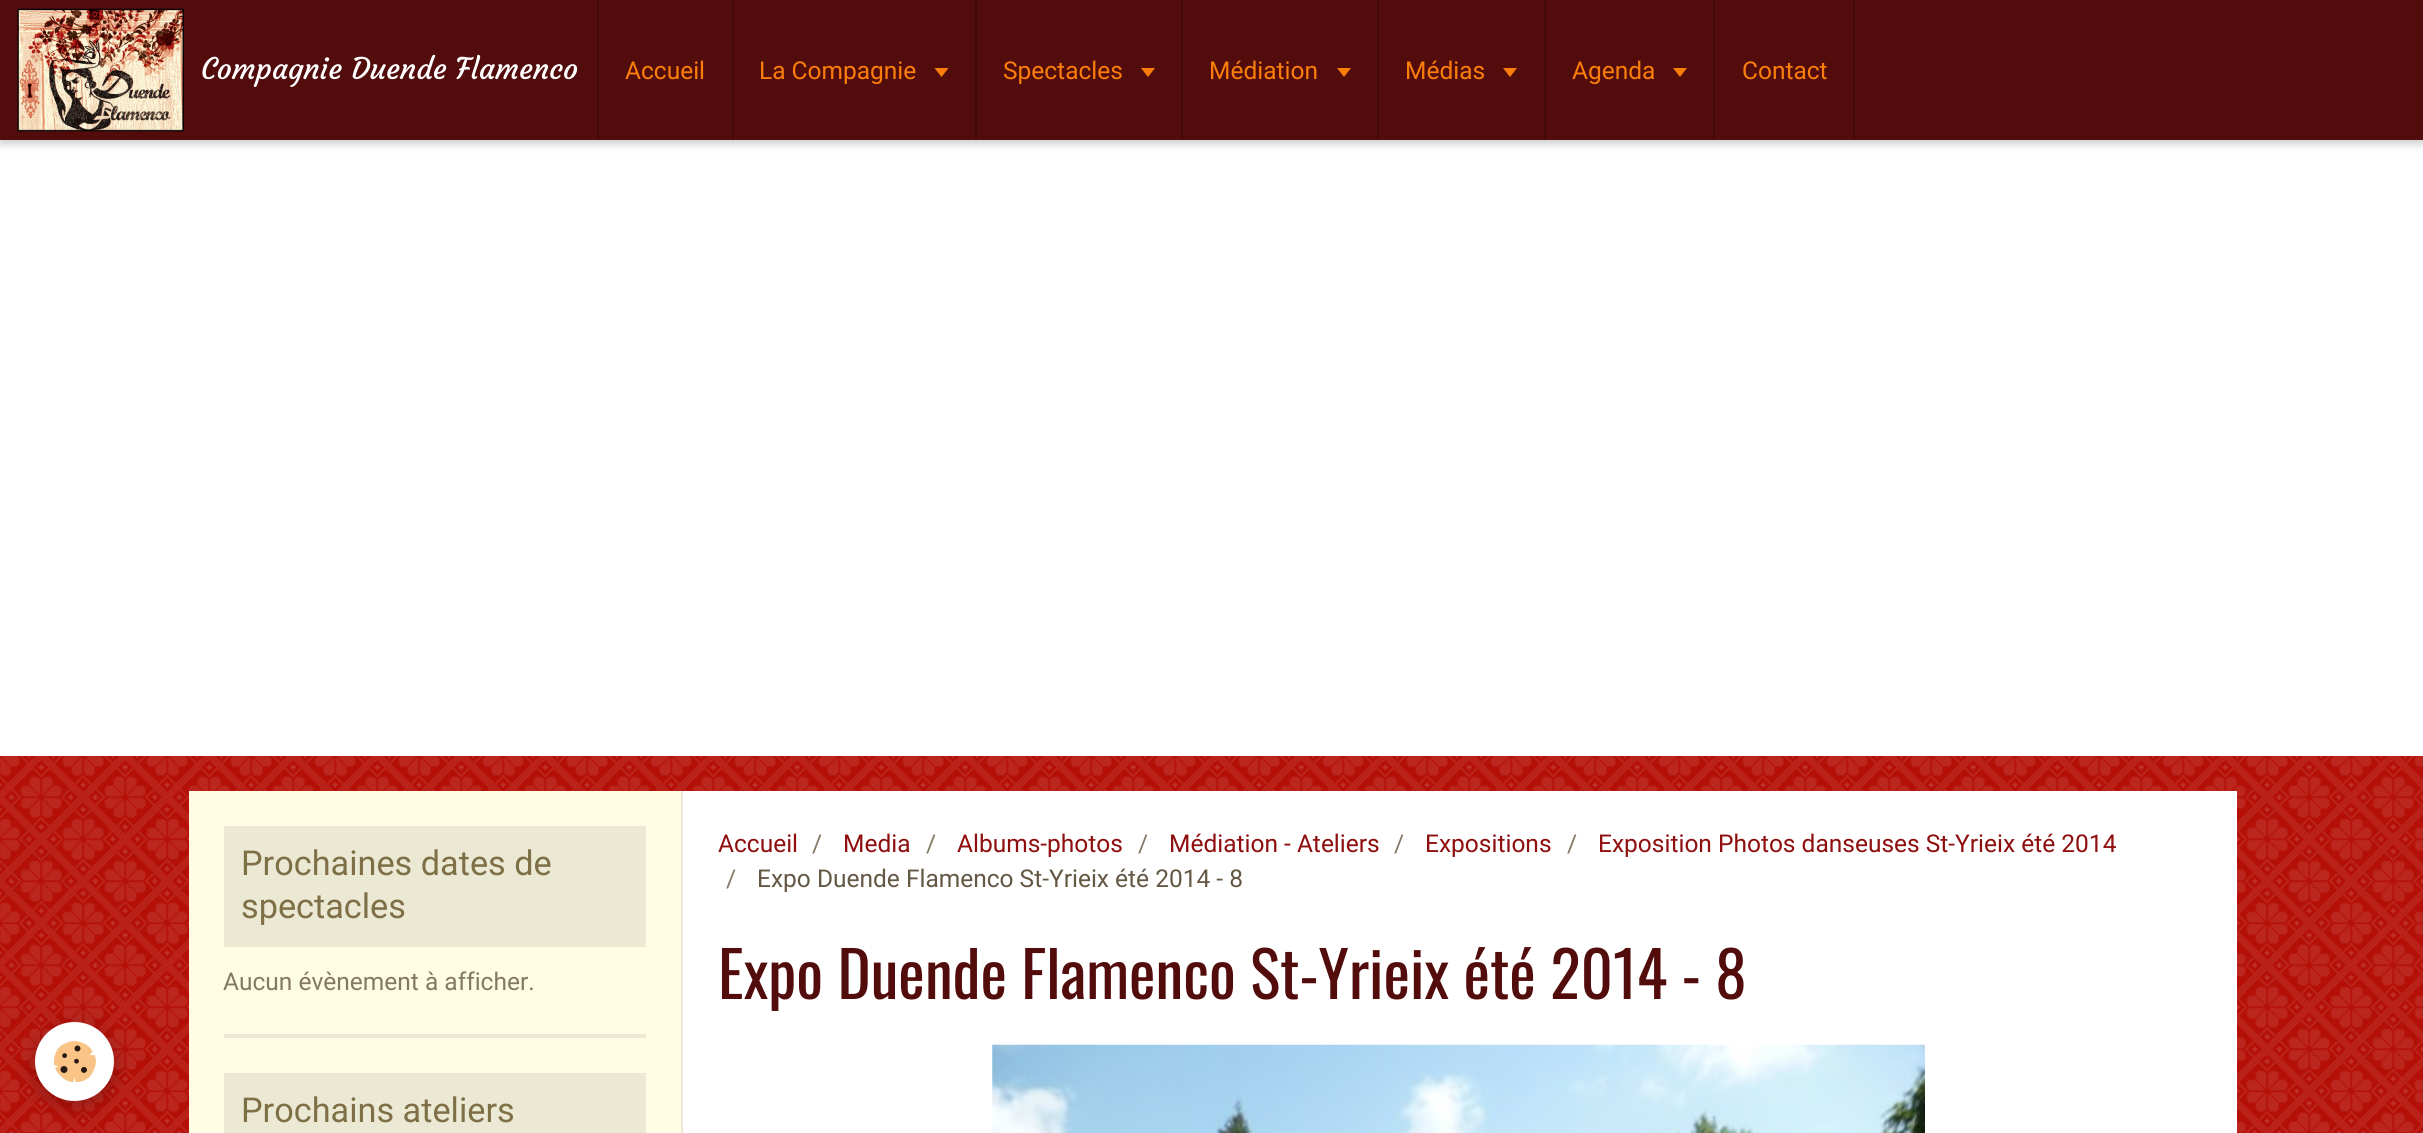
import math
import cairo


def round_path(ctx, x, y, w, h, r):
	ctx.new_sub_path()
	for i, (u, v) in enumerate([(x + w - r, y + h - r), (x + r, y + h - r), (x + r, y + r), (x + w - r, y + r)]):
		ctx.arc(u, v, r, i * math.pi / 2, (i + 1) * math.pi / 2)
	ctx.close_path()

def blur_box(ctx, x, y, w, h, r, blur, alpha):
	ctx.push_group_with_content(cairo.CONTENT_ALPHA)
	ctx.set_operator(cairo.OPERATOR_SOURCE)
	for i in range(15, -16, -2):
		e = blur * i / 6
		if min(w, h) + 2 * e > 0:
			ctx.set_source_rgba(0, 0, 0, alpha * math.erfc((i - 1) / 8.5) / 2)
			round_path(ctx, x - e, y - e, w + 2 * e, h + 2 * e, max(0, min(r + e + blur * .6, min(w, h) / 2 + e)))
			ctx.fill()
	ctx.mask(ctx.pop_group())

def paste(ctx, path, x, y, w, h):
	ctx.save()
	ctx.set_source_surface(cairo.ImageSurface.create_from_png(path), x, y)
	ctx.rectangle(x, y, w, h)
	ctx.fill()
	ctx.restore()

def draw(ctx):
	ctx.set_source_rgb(0.706, 0.063, 0.031)
	ctx.paint()
	paste(ctx, 'media/1.png', 0, 756, 2423, 377)
	ctx.set_source_rgb(1, 1, 1)
	ctx.rectangle(0, 140, 2423, 616)
	ctx.fill()
	ctx.set_source_rgb(0, 0, 0)
	blur_box(ctx, 0, 4, 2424, 140, 0, 4.5, 0.2)
	ctx.set_source_rgb(0.325, 0.047, 0.047)
	ctx.rectangle(0, 0, 2423, 140)
	ctx.fill()
	paste(ctx, 'media/2.png', 17, 8, 167, 124)
	ctx.select_font_face('Courgette')
	ctx.set_font_size(29.4)
	ctx.set_source_rgb(1, 1, 1)
	ctx.move_to(201, 79)
	ctx.show_text('Compagnie Duende Flamenco')
	ctx.set_source_rgb(0.259, 0.039, 0.039)
	ctx.rectangle(732, 0, 2, 140)
	ctx.fill()
	ctx.rectangle(597, 0, 2, 140)
	ctx.fill()
	ctx.select_font_face('Roboto')
	ctx.set_font_size(24.5)
	ctx.set_source_rgb(0.98, 0.494, 0.039)
	ctx.move_to(625, 79)
	ctx.show_text('Accueil')
	ctx.set_source_rgb(0.259, 0.039, 0.039)
	ctx.rectangle(975, 0, 2, 140)
	ctx.fill()
	ctx.set_source_rgb(0.98, 0.494, 0.039)
	ctx.move_to(759, 79)
	ctx.show_text('La Compagnie')
	ctx.new_path()
	ctx.move_to(934.5, 68)
	ctx.line_to(948.5, 68)
	ctx.line_to(941.5, 77)
	ctx.close_path()
	ctx.fill()
	ctx.set_source_rgb(0.259, 0.039, 0.039)
	ctx.rectangle(1181, 0, 2, 140)
	ctx.fill()
	ctx.set_source_rgb(0.98, 0.494, 0.039)
	ctx.move_to(1003, 79)
	ctx.show_text('Spectacles')
	ctx.new_path()
	ctx.move_to(1141, 68)
	ctx.line_to(1155, 68)
	ctx.line_to(1148, 77)
	ctx.close_path()
	ctx.fill()
	ctx.set_source_rgb(0.259, 0.039, 0.039)
	ctx.rectangle(1377, 0, 2, 140)
	ctx.fill()
	ctx.set_source_rgb(0.98, 0.494, 0.039)
	ctx.move_to(1209, 79)
	ctx.show_text('Médiation')
	ctx.new_path()
	ctx.move_to(1337, 68)
	ctx.line_to(1351, 68)
	ctx.line_to(1344, 77)
	ctx.close_path()
	ctx.fill()
	ctx.set_source_rgb(0.259, 0.039, 0.039)
	ctx.rectangle(1544, 0, 2, 140)
	ctx.fill()
	ctx.set_source_rgb(0.98, 0.494, 0.039)
	ctx.move_to(1405, 79)
	ctx.show_text('Médias')
	ctx.new_path()
	ctx.move_to(1503, 68)
	ctx.line_to(1517, 68)
	ctx.line_to(1510, 77)
	ctx.close_path()
	ctx.fill()
	ctx.set_source_rgb(0.259, 0.039, 0.039)
	ctx.rectangle(1713, 0, 2, 140)
	ctx.fill()
	ctx.set_source_rgb(0.98, 0.494, 0.039)
	ctx.move_to(1572, 79)
	ctx.show_text('Agenda')
	ctx.new_path()
	ctx.move_to(1673, 68)
	ctx.line_to(1687, 68)
	ctx.line_to(1680, 77)
	ctx.close_path()
	ctx.fill()
	ctx.set_source_rgb(0.259, 0.039, 0.039)
	ctx.rectangle(1853, 0, 2, 140)
	ctx.fill()
	ctx.set_source_rgb(0.98, 0.494, 0.039)
	ctx.move_to(1742, 79)
	ctx.show_text('Contact')
	ctx.set_source_rgb(0, 0, 0)
	blur_box(ctx, 35, 1027, 79, 79, 39.5, 9, 0.24)
	ctx.set_source_rgb(1, 1, 1)
	ctx.arc(74.5, 1061.5, 39.5, 0, 2 * math.pi)
	ctx.fill()
	paste(ctx, 'media/3.png', 53, 1041, 43, 42)
	ctx.set_source_rgb(0.996, 0.988, 0.89)
	ctx.rectangle(189, 791, 492, 342)
	ctx.fill()
	ctx.set_source_rgb(0.918, 0.914, 0.827)
	ctx.rectangle(681, 791, 2, 342)
	ctx.rectangle(224, 1034, 422, 4)
	ctx.rectangle(224, 826, 422, 121)
	ctx.fill()
	ctx.set_font_size(34.25)
	ctx.set_source_rgb(0.494, 0.435, 0.275)
	ctx.move_to(241, 875)
	ctx.show_text('Prochaines dates de')
	ctx.move_to(241, 918)
	ctx.show_text('spectacles')
	ctx.set_font_size(24.5)
	ctx.set_source_rgb(0.514, 0.471, 0.392)
	ctx.move_to(223, 990)
	ctx.show_text('Aucun évènement à afficher.')
	ctx.set_source_rgb(0.918, 0.914, 0.827)
	ctx.rectangle(224, 1073, 422, 60)
	ctx.fill()
	ctx.set_font_size(34.25)
	ctx.set_source_rgb(0.494, 0.435, 0.275)
	ctx.move_to(241, 1122)
	ctx.show_text('Prochains ateliers')
	ctx.set_source_rgb(1, 1, 1)
	ctx.rectangle(683, 791, 1554, 342)
	ctx.fill()
	ctx.set_font_size(24.5)
	ctx.set_source_rgb(0.561, 0.055, 0.055)
	ctx.move_to(718, 852)
	ctx.show_text('Accueil')
	ctx.set_source_rgb(0.514, 0.471, 0.392)
	ctx.move_to(812, 852)
	ctx.show_text('/')
	ctx.set_source_rgb(0.561, 0.055, 0.055)
	ctx.move_to(843, 852)
	ctx.show_text('Media')
	ctx.set_source_rgb(0.514, 0.471, 0.392)
	ctx.move_to(926, 852)
	ctx.show_text('/')
	ctx.set_source_rgb(0.561, 0.055, 0.055)
	ctx.move_to(957, 852)
	ctx.show_text('Albums-photos')
	ctx.set_source_rgb(0.514, 0.471, 0.392)
	ctx.move_to(1138, 852)
	ctx.show_text('/')
	ctx.set_source_rgb(0.561, 0.055, 0.055)
	ctx.move_to(1169, 852)
	ctx.show_text('Médiation - Ateliers')
	ctx.set_source_rgb(0.514, 0.471, 0.392)
	ctx.move_to(1394, 852)
	ctx.show_text('/')
	ctx.set_source_rgb(0.561, 0.055, 0.055)
	ctx.move_to(1425, 852)
	ctx.show_text('Expositions')
	ctx.set_source_rgb(0.514, 0.471, 0.392)
	ctx.move_to(1567, 852)
	ctx.show_text('/')
	ctx.set_source_rgb(0.561, 0.055, 0.055)
	ctx.move_to(1598, 852)
	ctx.show_text('Exposition Photos danseuses St-Yrieix été 2014')
	ctx.set_source_rgb(0.514, 0.471, 0.392)
	ctx.move_to(726, 887)
	ctx.show_text('/')
	ctx.set_source_rgb(0.392, 0.341, 0.267)
	ctx.move_to(757, 887)
	ctx.show_text('Expo Duende Flamenco St-Yrieix été 2014 - 8')
	ctx.select_font_face('Oswald')
	ctx.set_font_size(63)
	ctx.set_source_rgb(0.325, 0.047, 0.047)
	ctx.move_to(718, 999)
	ctx.show_text('Expo Duende Flamenco St-Yrieix été 2014 - 8')
	paste(ctx, 'media/4.png', 992, 1044, 933, 89)


surface = cairo.ImageSurface(cairo.FORMAT_RGB24, 2423, 1133)
ctx = cairo.Context(surface)
options = cairo.FontOptions()
options.set_hint_metrics(cairo.HINT_METRICS_OFF)
options.set_hint_style(cairo.HINT_STYLE_NONE)
ctx.set_font_options(options)
ctx.set_miter_limit(4)
draw(ctx)
surface.write_to_png('image.png')
